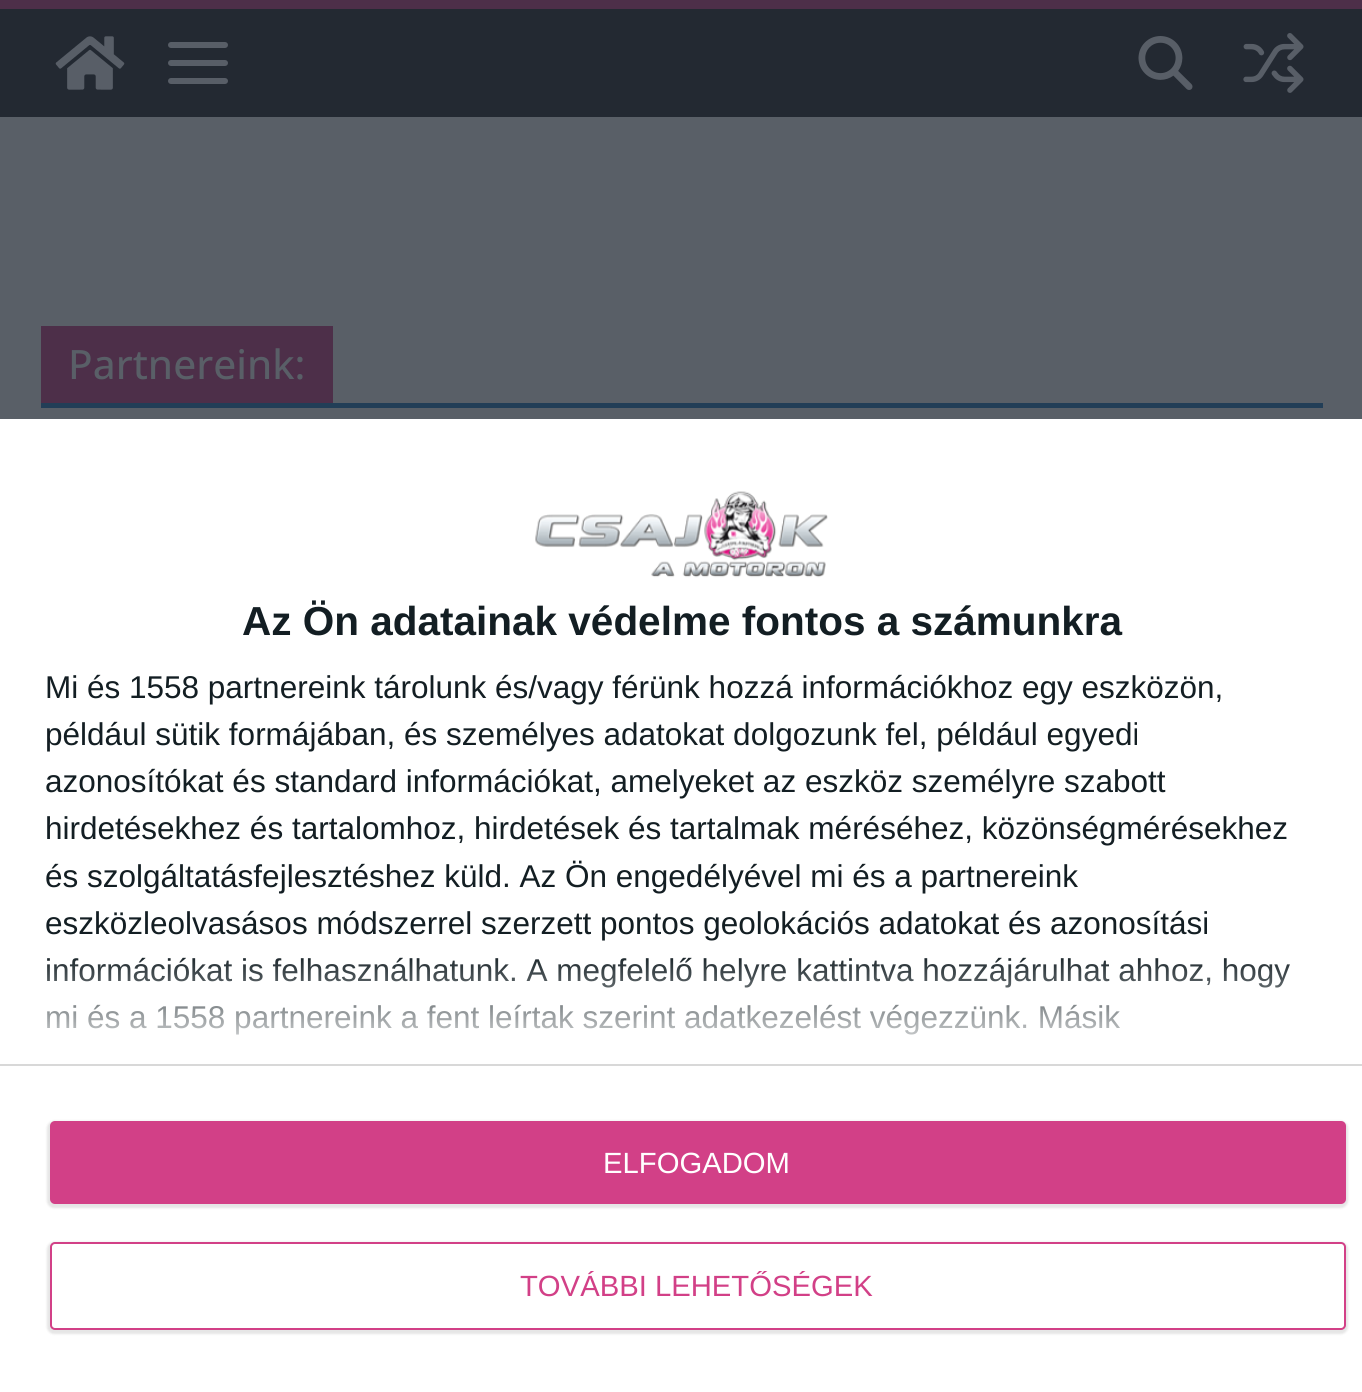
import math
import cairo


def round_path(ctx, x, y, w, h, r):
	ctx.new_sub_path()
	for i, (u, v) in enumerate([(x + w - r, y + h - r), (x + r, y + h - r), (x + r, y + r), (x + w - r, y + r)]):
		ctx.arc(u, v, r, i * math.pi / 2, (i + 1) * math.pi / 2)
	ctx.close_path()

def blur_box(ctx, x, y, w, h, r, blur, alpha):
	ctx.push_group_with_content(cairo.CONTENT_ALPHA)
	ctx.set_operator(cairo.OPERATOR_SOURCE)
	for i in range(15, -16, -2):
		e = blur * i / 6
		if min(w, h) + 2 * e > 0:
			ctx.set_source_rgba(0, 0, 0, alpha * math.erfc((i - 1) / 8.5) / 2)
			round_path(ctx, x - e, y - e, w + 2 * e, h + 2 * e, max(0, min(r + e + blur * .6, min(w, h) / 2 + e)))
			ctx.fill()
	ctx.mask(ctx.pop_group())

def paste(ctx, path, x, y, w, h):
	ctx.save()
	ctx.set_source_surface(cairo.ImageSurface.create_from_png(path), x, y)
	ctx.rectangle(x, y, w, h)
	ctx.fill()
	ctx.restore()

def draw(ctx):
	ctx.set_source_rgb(0.349, 0.373, 0.404)
	ctx.paint()
	ctx.set_source_rgb(0.137, 0.161, 0.196)
	ctx.rectangle(0, 9, 1362, 108)
	ctx.fill()
	ctx.set_source_rgb(0.302, 0.184, 0.286)
	ctx.rectangle(0, 0, 1362, 9)
	ctx.fill()
	paste(ctx, 'media/1.png', 55, 36, 70, 54)
	paste(ctx, 'media/2.png', 168, 42, 60, 42)
	paste(ctx, 'media/3.png', 1138, 36, 55, 54)
	paste(ctx, 'media/4.png', 1243, 33, 61, 60)
	ctx.set_source_rgb(0.133, 0.243, 0.341)
	ctx.rectangle(41, 403, 1282, 5)
	ctx.fill()
	ctx.set_source_rgb(0.302, 0.184, 0.286)
	ctx.rectangle(41, 326, 292, 77)
	ctx.fill()
	ctx.select_font_face('Open Sans Medium')
	ctx.set_font_size(40.5)
	ctx.set_source_rgb(0.349, 0.373, 0.404)
	ctx.move_to(68, 379)
	ctx.show_text('Partnereink:')
	ctx.set_source_rgb(1, 1, 1)
	ctx.rectangle(0, 419, 1362, 973)
	ctx.fill()
	paste(ctx, 'media/5.png', 535, 491, 293, 87)
	ctx.select_font_face('Liberation Sans', cairo.FONT_SLANT_NORMAL, cairo.FONT_WEIGHT_BOLD)
	ctx.set_source_rgb(0.078, 0.118, 0.137)
	ctx.move_to(242, 635)
	ctx.show_text('Az Ön adatainak védelme fontos a számunkra')
	ctx.select_font_face('Liberation Sans')
	ctx.set_font_size(31.5)
	for x, y, s in [
		(45, 698, 'Mi és 1558 partnereink tárolunk és/vagy férünk hozzá információkhoz egy eszközön,'),
		(45, 745, 'például sütik formájában, és személyes adatokat dolgozunk fel, például egyedi'),
		(45, 792, 'azonosítókat és standard információkat, amelyeket az eszköz személyre szabott'),
		(45, 839, 'hirdetésekhez és tartalomhoz, hirdetések és tartalmak méréséhez, közönségmérésekhez'),
		(45, 887, 'és szolgáltatásfejlesztéshez küld. Az Ön engedélyével mi és a partnereink'),
		(45, 934, 'eszközleolvasásos módszerrel szerzett pontos geolokációs adatokat és azonosítási'),
		(45, 981, 'információkat is felhasználhatunk. A megfelelő helyre kattintva hozzájárulhat ahhoz, hogy'),
		(45, 1028, 'mi és a 1558 partnereink a fent leírtak szerint adatkezelést végezzünk. Másik'),
	]:
		ctx.move_to(x, y)
		ctx.show_text(s)
	ctx.set_source_rgb(0.847, 0.847, 0.847)
	ctx.rectangle(0, 1064, 1362, 2)
	ctx.fill()
	gradient = cairo.LinearGradient(682, 1064, 682, 952)
	gradient.add_color_stop_rgba(0, 1, 1, 1, 1)
	gradient.add_color_stop_rgba(1, 1, 1, 1, 0)
	ctx.set_source(gradient)
	ctx.rectangle(47, 958, 1243, 77)
	ctx.fill()
	ctx.set_source_rgb(0, 0, 0)
	blur_box(ctx, 47, 1121, 1301, 87, 7, 1, 0.1)
	ctx.set_source_rgb(0.824, 0.251, 0.529)
	round_path(ctx, 50, 1121, 1296, 83, 5)
	ctx.fill()
	ctx.set_font_size(29.25)
	ctx.set_source_rgb(1, 1, 1)
	ctx.move_to(603, 1173)
	ctx.show_text('ELFOGADOM')
	ctx.set_source_rgb(0, 0, 0)
	blur_box(ctx, 47, 1242, 1301, 92, 7, 1, 0.1)
	ctx.set_source_rgb(1, 1, 1)
	round_path(ctx, 51, 1243, 1294, 86, 4)
	ctx.fill_preserve()
	ctx.set_source_rgb(0.824, 0.251, 0.529)
	ctx.stroke()
	ctx.save()
	ctx.rectangle(520, 1271, 353, 30)
	ctx.clip()
	ctx.move_to(520, 1296)
	ctx.show_text('TOVÁBBI LEHETŐSÉGEK')
	ctx.restore()


surface = cairo.ImageSurface(cairo.FORMAT_RGB24, 1362, 1392)
ctx = cairo.Context(surface)
options = cairo.FontOptions()
options.set_hint_metrics(cairo.HINT_METRICS_OFF)
options.set_hint_style(cairo.HINT_STYLE_NONE)
ctx.set_font_options(options)
ctx.set_miter_limit(4)
draw(ctx)
surface.write_to_png('image.png')
